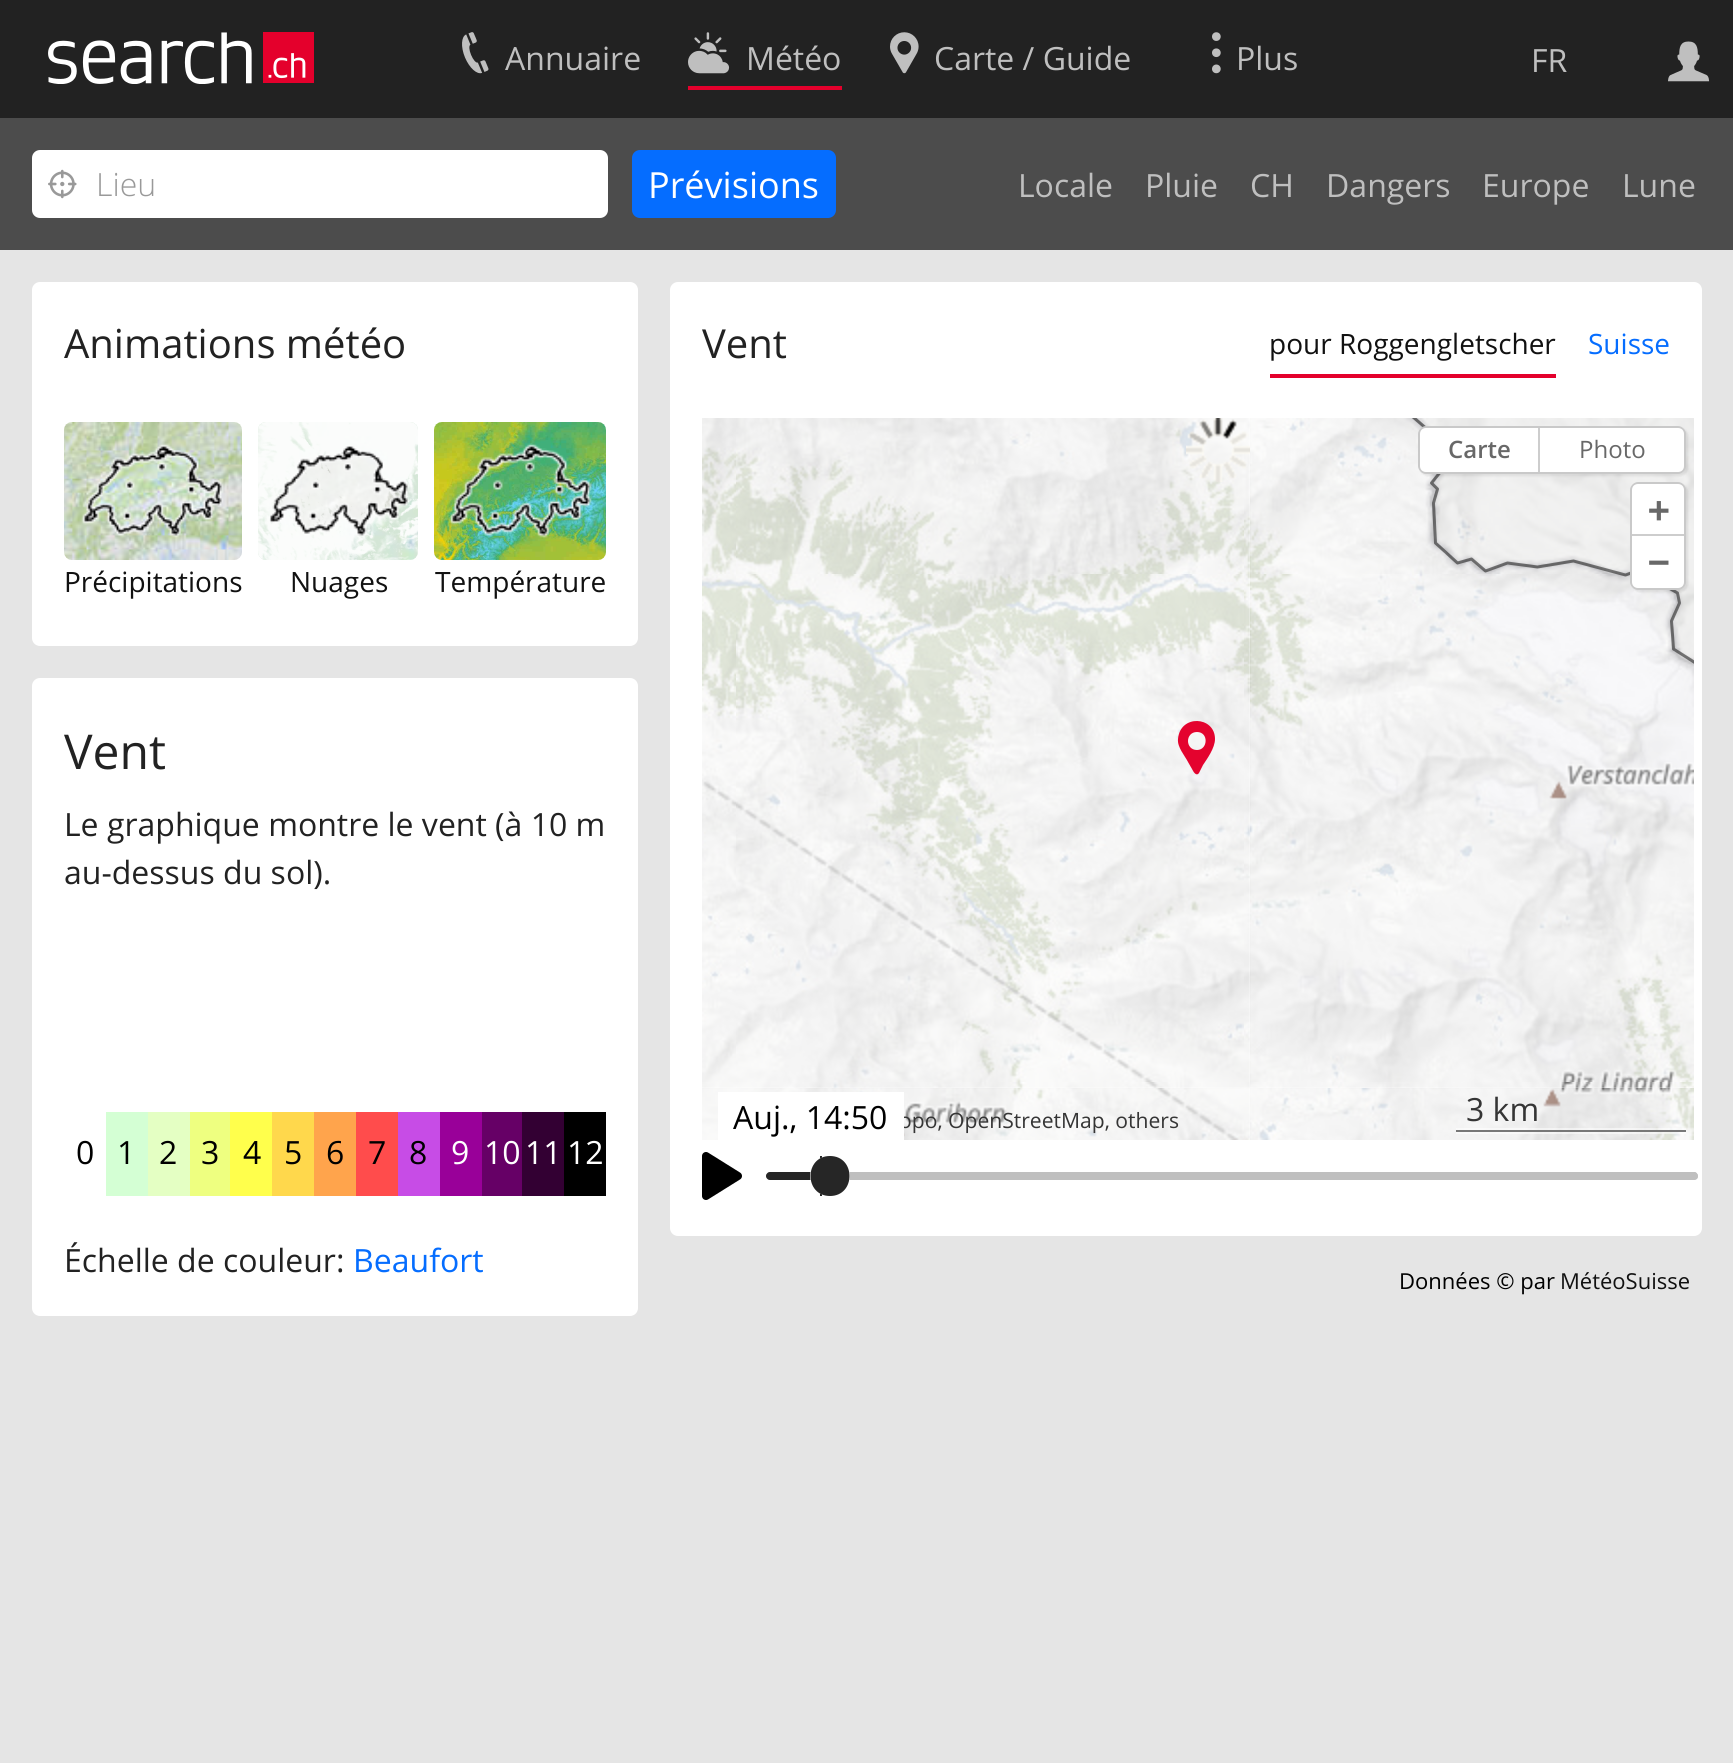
import math
import cairo


def round_path(ctx, x, y, w, h, r):
	ctx.new_sub_path()
	for i, (u, v) in enumerate([(x + w - r, y + h - r), (x + r, y + h - r), (x + r, y + r), (x + w - r, y + r)]):
		ctx.arc(u, v, r, i * math.pi / 2, (i + 1) * math.pi / 2)
	ctx.close_path()

def blur_box(ctx, x, y, w, h, r, blur, alpha):
	ctx.push_group_with_content(cairo.CONTENT_ALPHA)
	ctx.set_operator(cairo.OPERATOR_SOURCE)
	for i in range(15, -16, -2):
		e = blur * i / 6
		if min(w, h) + 2 * e > 0:
			ctx.set_source_rgba(0, 0, 0, alpha * math.erfc((i - 1) / 8.5) / 2)
			round_path(ctx, x - e, y - e, w + 2 * e, h + 2 * e, max(0, min(r + e + blur * .6, min(w, h) / 2 + e)))
			ctx.fill()
	ctx.mask(ctx.pop_group())

def paste(ctx, path, x, y, w, h):
	ctx.save()
	ctx.set_source_surface(cairo.ImageSurface.create_from_png(path), x, y)
	ctx.rectangle(x, y, w, h)
	ctx.fill()
	ctx.restore()

def draw(ctx):
	ctx.set_source_rgb(0.898, 0.898, 0.898)
	ctx.paint()
	ctx.set_source_rgb(0.133, 0.133, 0.133)
	ctx.rectangle(0, 0, 1733, 118)
	ctx.fill()
	paste(ctx, 'media/1.png', 48, 32, 266, 52)
	paste(ctx, 'media/2.png', 462, 32, 27, 42)
	ctx.select_font_face('Open Sans')
	ctx.set_font_size(32)
	ctx.set_source_rgb(0.749, 0.749, 0.749)
	ctx.move_to(505, 70)
	ctx.show_text('Annuaire')
	ctx.set_source_rgb(0.894, 0, 0.173)
	ctx.rectangle(688, 86, 154, 4)
	ctx.fill()
	paste(ctx, 'media/3.png', 688, 32, 42, 42)
	ctx.set_source_rgb(0.749, 0.749, 0.749)
	ctx.move_to(746, 70)
	ctx.show_text('Météo')
	paste(ctx, 'media/4.png', 890, 32, 29, 42)
	ctx.move_to(934, 70)
	ctx.show_text('Carte / Guide')
	paste(ctx, 'media/5.png', 1212, 32, 9, 42)
	ctx.move_to(1236, 70)
	ctx.show_text('Plus')
	ctx.move_to(1531, 72)
	ctx.show_text('FR')
	paste(ctx, 'media/6.png', 1668, 41, 42, 41)
	ctx.set_source_rgb(0.298, 0.298, 0.298)
	ctx.rectangle(0, 118, 1733, 132)
	ctx.fill()
	ctx.set_source_rgb(1, 1, 1)
	round_path(ctx, 32, 150, 576, 68, 8)
	ctx.fill()
	paste(ctx, 'media/7.png', 48, 169, 29, 30)
	ctx.select_font_face('Open Sans Light')
	ctx.set_source_rgb(0.6, 0.6, 0.6)
	ctx.move_to(96, 196)
	ctx.show_text('Lieu')
	ctx.set_source_rgb(0.02, 0.427, 1)
	round_path(ctx, 632, 150, 204, 68, 8)
	ctx.fill()
	ctx.select_font_face('Open Sans')
	ctx.set_font_size(36)
	ctx.set_source_rgb(1, 1, 1)
	ctx.move_to(648, 198)
	ctx.show_text('Prévisions')
	ctx.set_font_size(32)
	ctx.set_source_rgb(0.749, 0.749, 0.749)
	for x, y, s in [
		(1018, 197, 'Locale'),
		(1145, 197, 'Pluie'),
		(1250, 197, 'CH'),
		(1326, 197, 'Dangers'),
		(1482, 197, 'Europe'),
		(1622, 197, 'Lune'),
	]:
		ctx.move_to(x, y)
		ctx.show_text(s)
	ctx.set_source_rgb(1, 1, 1)
	round_path(ctx, 32, 282, 606, 364, 8)
	ctx.fill()
	ctx.set_font_size(40)
	ctx.set_source_rgb(0.133, 0.133, 0.133)
	ctx.move_to(64, 358)
	ctx.show_text('Animations météo')
	paste(ctx, 'media/8.png', 64, 422, 178, 138)
	ctx.set_source_rgb(0.737, 0.761, 0.718)
	ctx.rectangle(149, 534, 1, 1)
	ctx.fill()
	paste(ctx, 'media/9.png', 82, 444, 142, 94)
	ctx.set_font_size(28)
	ctx.set_source_rgb(0.067, 0.067, 0.067)
	ctx.move_to(64, 592)
	ctx.show_text('Précipitations')
	paste(ctx, 'media/10.png', 258, 422, 160, 138)
	paste(ctx, 'media/11.png', 258, 422, 160, 138)
	paste(ctx, 'media/12.png', 269, 446, 141, 91)
	ctx.move_to(290, 592)
	ctx.show_text('Nuages')
	paste(ctx, 'media/13.png', 434, 422, 172, 138)
	paste(ctx, 'media/14.png', 449, 443, 143, 95)
	ctx.move_to(435, 592)
	ctx.show_text('Température')
	ctx.set_source_rgb(1, 1, 1)
	round_path(ctx, 32, 678, 606, 638, 8)
	ctx.fill()
	ctx.set_font_size(48)
	ctx.set_source_rgb(0.133, 0.133, 0.133)
	ctx.move_to(64, 769)
	ctx.show_text('Vent')
	ctx.set_font_size(32)
	ctx.move_to(64, 836)
	ctx.show_text('Le graphique montre le vent (à 10 m')
	ctx.move_to(64, 884)
	ctx.show_text('au-dessus du sol).')
	ctx.set_source_rgb(0, 0, 0)
	ctx.move_to(76, 1164)
	ctx.show_text('0')
	ctx.set_source_rgb(0.831, 1, 0.831)
	ctx.rectangle(106, 1112, 42, 84)
	ctx.fill()
	ctx.set_source_rgb(0, 0, 0)
	ctx.move_to(117, 1164)
	ctx.show_text('1')
	ctx.set_source_rgb(0.894, 1, 0.765)
	ctx.rectangle(148, 1112, 42, 84)
	ctx.fill()
	ctx.set_source_rgb(0, 0, 0)
	ctx.move_to(159, 1164)
	ctx.show_text('2')
	ctx.set_source_rgb(0.933, 1, 0.502)
	ctx.rectangle(190, 1112, 40, 84)
	ctx.fill()
	ctx.set_source_rgb(0, 0, 0)
	ctx.move_to(201, 1164)
	ctx.show_text('3')
	ctx.set_source_rgb(1, 1, 0.298)
	ctx.rectangle(230, 1112, 42, 84)
	ctx.fill()
	ctx.set_source_rgb(0, 0, 0)
	ctx.move_to(243, 1164)
	ctx.show_text('4')
	ctx.set_source_rgb(1, 0.847, 0.298)
	ctx.rectangle(272, 1112, 42, 84)
	ctx.fill()
	ctx.set_source_rgb(0, 0, 0)
	ctx.move_to(284, 1164)
	ctx.show_text('5')
	ctx.set_source_rgb(1, 0.643, 0.298)
	ctx.rectangle(314, 1112, 42, 84)
	ctx.fill()
	ctx.set_source_rgb(0, 0, 0)
	ctx.move_to(326, 1164)
	ctx.show_text('6')
	ctx.set_source_rgb(1, 0.298, 0.298)
	ctx.rectangle(356, 1112, 42, 84)
	ctx.fill()
	ctx.set_source_rgb(0, 0, 0)
	ctx.move_to(368, 1164)
	ctx.show_text('7')
	ctx.set_source_rgb(0.78, 0.298, 0.902)
	ctx.rectangle(398, 1112, 42, 84)
	ctx.fill()
	ctx.set_source_rgb(0, 0, 0)
	ctx.move_to(409, 1164)
	ctx.show_text('8')
	ctx.set_source_rgb(0.6, 0, 0.6)
	ctx.rectangle(440, 1112, 42, 84)
	ctx.fill()
	ctx.set_source_rgb(1, 1, 1)
	ctx.move_to(451, 1164)
	ctx.show_text('9')
	ctx.set_source_rgb(0.4, 0, 0.4)
	ctx.rectangle(482, 1112, 40, 84)
	ctx.fill()
	ctx.set_source_rgb(1, 1, 1)
	ctx.move_to(484, 1164)
	ctx.show_text('10')
	ctx.set_source_rgb(0.2, 0, 0.2)
	ctx.rectangle(522, 1112, 42, 84)
	ctx.fill()
	ctx.set_source_rgb(1, 1, 1)
	ctx.move_to(525, 1164)
	ctx.show_text('11')
	ctx.set_source_rgb(0, 0, 0)
	ctx.rectangle(564, 1112, 42, 84)
	ctx.fill()
	ctx.set_source_rgb(1, 1, 1)
	ctx.move_to(567, 1164)
	ctx.show_text('12')
	ctx.set_source_rgb(0.133, 0.133, 0.133)
	ctx.move_to(64, 1272)
	ctx.show_text('Échelle de couleur:')
	ctx.set_source_rgb(0.02, 0.427, 1)
	ctx.move_to(353, 1272)
	ctx.show_text('Beaufort')
	ctx.set_source_rgb(1, 1, 1)
	round_path(ctx, 670, 282, 1032, 954, 8)
	ctx.fill()
	ctx.set_font_size(40)
	ctx.set_source_rgb(0.133, 0.133, 0.133)
	ctx.move_to(702, 358)
	ctx.show_text('Vent')
	ctx.set_source_rgb(0.894, 0, 0.173)
	ctx.rectangle(1270, 374, 286, 4)
	ctx.fill()
	ctx.set_font_size(28)
	ctx.set_source_rgb(0.067, 0.067, 0.067)
	ctx.move_to(1269, 354)
	ctx.show_text('pour Roggengletscher')
	ctx.set_source_rgb(0.02, 0.427, 1)
	ctx.move_to(1588, 354)
	ctx.show_text('Suisse')
	paste(ctx, 'media/16.png', 702, 418, 549, 671)
	paste(ctx, 'media/15.png', 1186, 418, 64, 64)
	paste(ctx, 'media/17.png', 1250, 418, 444, 671)
	paste(ctx, 'media/18.png', 702, 1088, 549, 52)
	paste(ctx, 'media/22.png', 904, 1101, 103, 36)
	ctx.set_font_size(21.1)
	ctx.set_source_rgb(0.208, 0.208, 0.208)
	ctx.move_to(899, 1128)
	ctx.show_text('opo, OpenStreetMap, others')
	ctx.set_source_rgb(1, 1, 1)
	ctx.rectangle(718, 1092, 186, 48)
	ctx.fill()
	ctx.set_font_size(32)
	ctx.set_source_rgb(0, 0, 0)
	ctx.move_to(733, 1129)
	ctx.show_text('Auj., 14:50')
	paste(ctx, 'media/19.png', 1250, 1088, 444, 52)
	ctx.save()
	ctx.rectangle(702, 418, 992, 722)
	ctx.clip()
	ctx.new_path()
	ctx.move_to(601.5, 1215)
	ctx.line_to(601.5, 343)
	ctx.line_to(1329.5, 343)
	ctx.line_to(1339.5, 351)
	ctx.line_to(1357.5, 349)
	ctx.line_to(1367.5, 357)
	ctx.line_to(1377.5, 373)
	ctx.line_to(1385.5, 403)
	ctx.line_to(1401.5, 407)
	ctx.line_to(1431.5, 433)
	ctx.line_to(1439.5, 433)
	ctx.line_to(1443.5, 451)
	ctx.line_to(1437.5, 459)
	ctx.line_to(1439.5, 473)
	ctx.line_to(1431.5, 483)
	ctx.line_to(1437.5, 489)
	ctx.line_to(1433.5, 503)
	ctx.line_to(1435.5, 543)
	ctx.line_to(1457.5, 563)
	ctx.line_to(1471.5, 559)
	ctx.line_to(1485.5, 571)
	ctx.line_to(1507.5, 563)
	ctx.line_to(1537.5, 567)
	ctx.line_to(1573.5, 561)
	ctx.line_to(1625.5, 575)
	ctx.line_to(1647.5, 567)
	ctx.line_to(1653.5, 579)
	ctx.line_to(1677.5, 593)
	ctx.line_to(1679.5, 603)
	ctx.line_to(1671.5, 621)
	ctx.line_to(1673.5, 649)
	ctx.line_to(1695.5, 663)
	ctx.line_to(1707.5, 683)
	ctx.line_to(1723.5, 695)
	ctx.line_to(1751.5, 739)
	ctx.line_to(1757.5, 735)
	ctx.line_to(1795.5, 729)
	ctx.line_to(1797.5, 1215)
	ctx.close_path()
	ctx.set_source_rgba(0.012, 0.012, 0.012, 0.5)
	ctx.set_line_width(3)
	ctx.set_line_cap(cairo.LINE_CAP_ROUND)
	ctx.set_line_join(cairo.LINE_JOIN_ROUND)
	ctx.stroke()
	ctx.restore()
	ctx.set_source_rgb(0.894, 0.012, 0.18)
	ctx.new_path()
	ctx.move_to(1215, 739)
	ctx.curve_to(1215, 716, 1180, 714, 1178, 739)
	ctx.curve_to(1177, 747, 1185, 756, 1188, 762)
	ctx.line_to(1192, 769)
	ctx.curve_to(1193, 771, 1196, 777, 1199, 773)
	ctx.line_to(1203, 765)
	ctx.curve_to(1207, 759, 1215, 748, 1215, 739)
	ctx.close_path()
	ctx.move_to(1197, 750)
	ctx.curve_to(1185, 750, 1185, 732, 1197, 732)
	ctx.curve_to(1209, 732, 1208, 750, 1197, 750)
	ctx.close_path()
	ctx.fill()
	paste(ctx, 'media/20.png', 1549, 762, 145, 327)
	paste(ctx, 'media/21.png', 1543, 1088, 129, 19)
	ctx.set_source_rgb(0.012, 0.012, 0.012)
	blur_box(ctx, 1420, 428, 268, 48, 8, 1, 0.08)
	ctx.set_source_rgb(0.788, 0.788, 0.788)
	ctx.new_path()
	ctx.move_to(1426, 426)
	ctx.line_to(1678, 426)
	ctx.curve_to(1682, 426, 1686, 430, 1686, 434)
	ctx.line_to(1686, 466)
	ctx.curve_to(1686, 470, 1682, 474, 1678, 474)
	ctx.line_to(1426, 474)
	ctx.curve_to(1422, 474, 1418, 470, 1418, 466)
	ctx.line_to(1418, 434)
	ctx.curve_to(1418, 430, 1422, 426, 1426, 426)
	ctx.close_path()
	ctx.fill()
	ctx.set_source_rgb(1, 1, 1)
	ctx.new_path()
	ctx.move_to(1426, 428)
	ctx.line_to(1540, 428)
	ctx.line_to(1540, 472)
	ctx.line_to(1426, 472)
	ctx.curve_to(1422.5, 472, 1420, 469.5, 1420, 466)
	ctx.line_to(1420, 434)
	ctx.curve_to(1420, 430.5, 1422.5, 428, 1426, 428)
	ctx.close_path()
	ctx.fill()
	ctx.set_source_rgb(0.804, 0.804, 0.804)
	ctx.rectangle(1538, 428, 2, 44)
	ctx.fill()
	ctx.select_font_face('Open Sans SemiBold')
	ctx.set_font_size(24)
	ctx.set_source_rgb(0.408, 0.408, 0.408)
	ctx.move_to(1448, 458)
	ctx.show_text('Carte')
	ctx.set_source_rgb(1, 1, 1)
	ctx.new_path()
	ctx.move_to(1540, 428)
	ctx.line_to(1678, 428)
	ctx.curve_to(1681.5, 428, 1684, 430.5, 1684, 434)
	ctx.line_to(1684, 466)
	ctx.curve_to(1684, 469.5, 1681.5, 472, 1678, 472)
	ctx.line_to(1540, 472)
	ctx.close_path()
	ctx.fill()
	ctx.select_font_face('Open Sans')
	ctx.set_source_rgb(0.408, 0.408, 0.408)
	ctx.move_to(1579, 458)
	ctx.show_text('Photo')
	ctx.set_source_rgb(0.012, 0.012, 0.012)
	blur_box(ctx, 1632, 484, 56, 108, 8, 1, 0.08)
	ctx.set_source_rgb(0.788, 0.788, 0.788)
	ctx.new_path()
	ctx.move_to(1638, 482)
	ctx.line_to(1678, 482)
	ctx.curve_to(1682, 482, 1686, 486, 1686, 490)
	ctx.line_to(1686, 582)
	ctx.curve_to(1686, 586, 1682, 590, 1678, 590)
	ctx.line_to(1638, 590)
	ctx.curve_to(1634, 590, 1630, 586, 1630, 582)
	ctx.line_to(1630, 490)
	ctx.curve_to(1630, 486, 1634, 482, 1638, 482)
	ctx.close_path()
	ctx.fill()
	ctx.set_source_rgb(1, 1, 1)
	ctx.new_path()
	ctx.move_to(1638, 484)
	ctx.line_to(1678, 484)
	ctx.curve_to(1681.5, 484, 1684, 486.5, 1684, 490)
	ctx.line_to(1684, 536)
	ctx.line_to(1632, 536)
	ctx.line_to(1632, 490)
	ctx.curve_to(1632, 486.5, 1634.5, 484, 1638, 484)
	ctx.close_path()
	ctx.fill()
	ctx.set_source_rgb(0.804, 0.804, 0.804)
	ctx.rectangle(1632, 534, 52, 2)
	ctx.fill()
	ctx.select_font_face('DejaVu Sans Mono', cairo.FONT_SLANT_NORMAL, cairo.FONT_WEIGHT_BOLD)
	ctx.set_font_size(36)
	ctx.set_source_rgb(0.408, 0.408, 0.408)
	ctx.move_to(1648, 522)
	ctx.show_text('+')
	ctx.set_source_rgb(1, 1, 1)
	ctx.new_path()
	ctx.move_to(1632, 536)
	ctx.line_to(1684, 536)
	ctx.line_to(1684, 582)
	ctx.curve_to(1684, 585.5, 1681.5, 588, 1678, 588)
	ctx.line_to(1638, 588)
	ctx.curve_to(1634.5, 588, 1632, 585.5, 1632, 582)
	ctx.close_path()
	ctx.fill()
	ctx.set_source_rgb(0.408, 0.408, 0.408)
	ctx.move_to(1648, 574)
	ctx.show_text('−')
	ctx.set_source_rgba(1, 1, 1, 0.5)
	ctx.rectangle(1456, 1132, 230, 2)
	ctx.fill()
	ctx.rectangle(1456, 1128, 230, 2)
	ctx.fill()
	ctx.set_source_rgb(0.471, 0.471, 0.471)
	ctx.rectangle(1456, 1130, 230, 2)
	ctx.fill()
	ctx.select_font_face('Open Sans')
	ctx.set_font_size(32)
	ctx.set_source_rgb(0.208, 0.208, 0.208)
	ctx.move_to(1466, 1121)
	ctx.show_text('3 km')
	ctx.set_source_rgb(0, 0, 0)
	ctx.new_path()
	ctx.move_to(706, 1156)
	ctx.line_to(738, 1176)
	ctx.line_to(706, 1196)
	ctx.close_path()
	ctx.fill_preserve()
	ctx.set_line_width(8)
	ctx.set_line_join(cairo.LINE_JOIN_ROUND)
	ctx.stroke()
	ctx.set_source_rgb(0.749, 0.749, 0.749)
	round_path(ctx, 766, 1172, 932, 8, 4)
	ctx.fill()
	ctx.new_path()
	ctx.move_to(770, 1172)
	ctx.line_to(1694, 1172)
	ctx.curve_to(1697, 1172, 1699, 1176, 1697, 1179)
	ctx.line_to(1694, 1180)
	ctx.line_to(770, 1180)
	ctx.curve_to(765, 1180, 765, 1172, 770, 1172)
	ctx.close_path()
	ctx.fill()
	ctx.set_source_rgb(0.149, 0.149, 0.149)
	ctx.rectangle(820, 1156, 2, 40)
	ctx.fill()
	ctx.new_path()
	ctx.move_to(770, 1172)
	ctx.line_to(818, 1172)
	ctx.curve_to(820, 1172, 822, 1174, 822, 1176)
	ctx.curve_to(822, 1178, 820, 1180, 818, 1180)
	ctx.line_to(770, 1180)
	ctx.curve_to(768, 1180, 766, 1178, 766, 1176)
	ctx.curve_to(766, 1174, 768, 1172, 770, 1172)
	ctx.close_path()
	ctx.fill()
	ctx.set_source_rgb(1, 1, 1)
	ctx.arc(830, 1176, 20, 0, 2 * math.pi)
	ctx.fill()
	ctx.set_source_rgb(0.149, 0.149, 0.149)
	ctx.new_path()
	ctx.move_to(830, 1156)
	ctx.curve_to(856, 1156, 856, 1196, 830, 1196)
	ctx.curve_to(804, 1196, 804, 1156, 830, 1156)
	ctx.close_path()
	ctx.fill()
	ctx.set_font_size(22)
	ctx.set_source_rgb(0, 0, 0)
	ctx.move_to(1399, 1289)
	ctx.show_text('Données © par')
	ctx.set_source_rgb(0.067, 0.067, 0.067)
	ctx.move_to(1560, 1289)
	ctx.show_text('MétéoSuisse')


surface = cairo.ImageSurface(cairo.FORMAT_RGB24, 1733, 1763)
ctx = cairo.Context(surface)
options = cairo.FontOptions()
options.set_hint_metrics(cairo.HINT_METRICS_OFF)
options.set_hint_style(cairo.HINT_STYLE_NONE)
ctx.set_font_options(options)
ctx.set_miter_limit(4)
draw(ctx)
surface.write_to_png('image.png')
